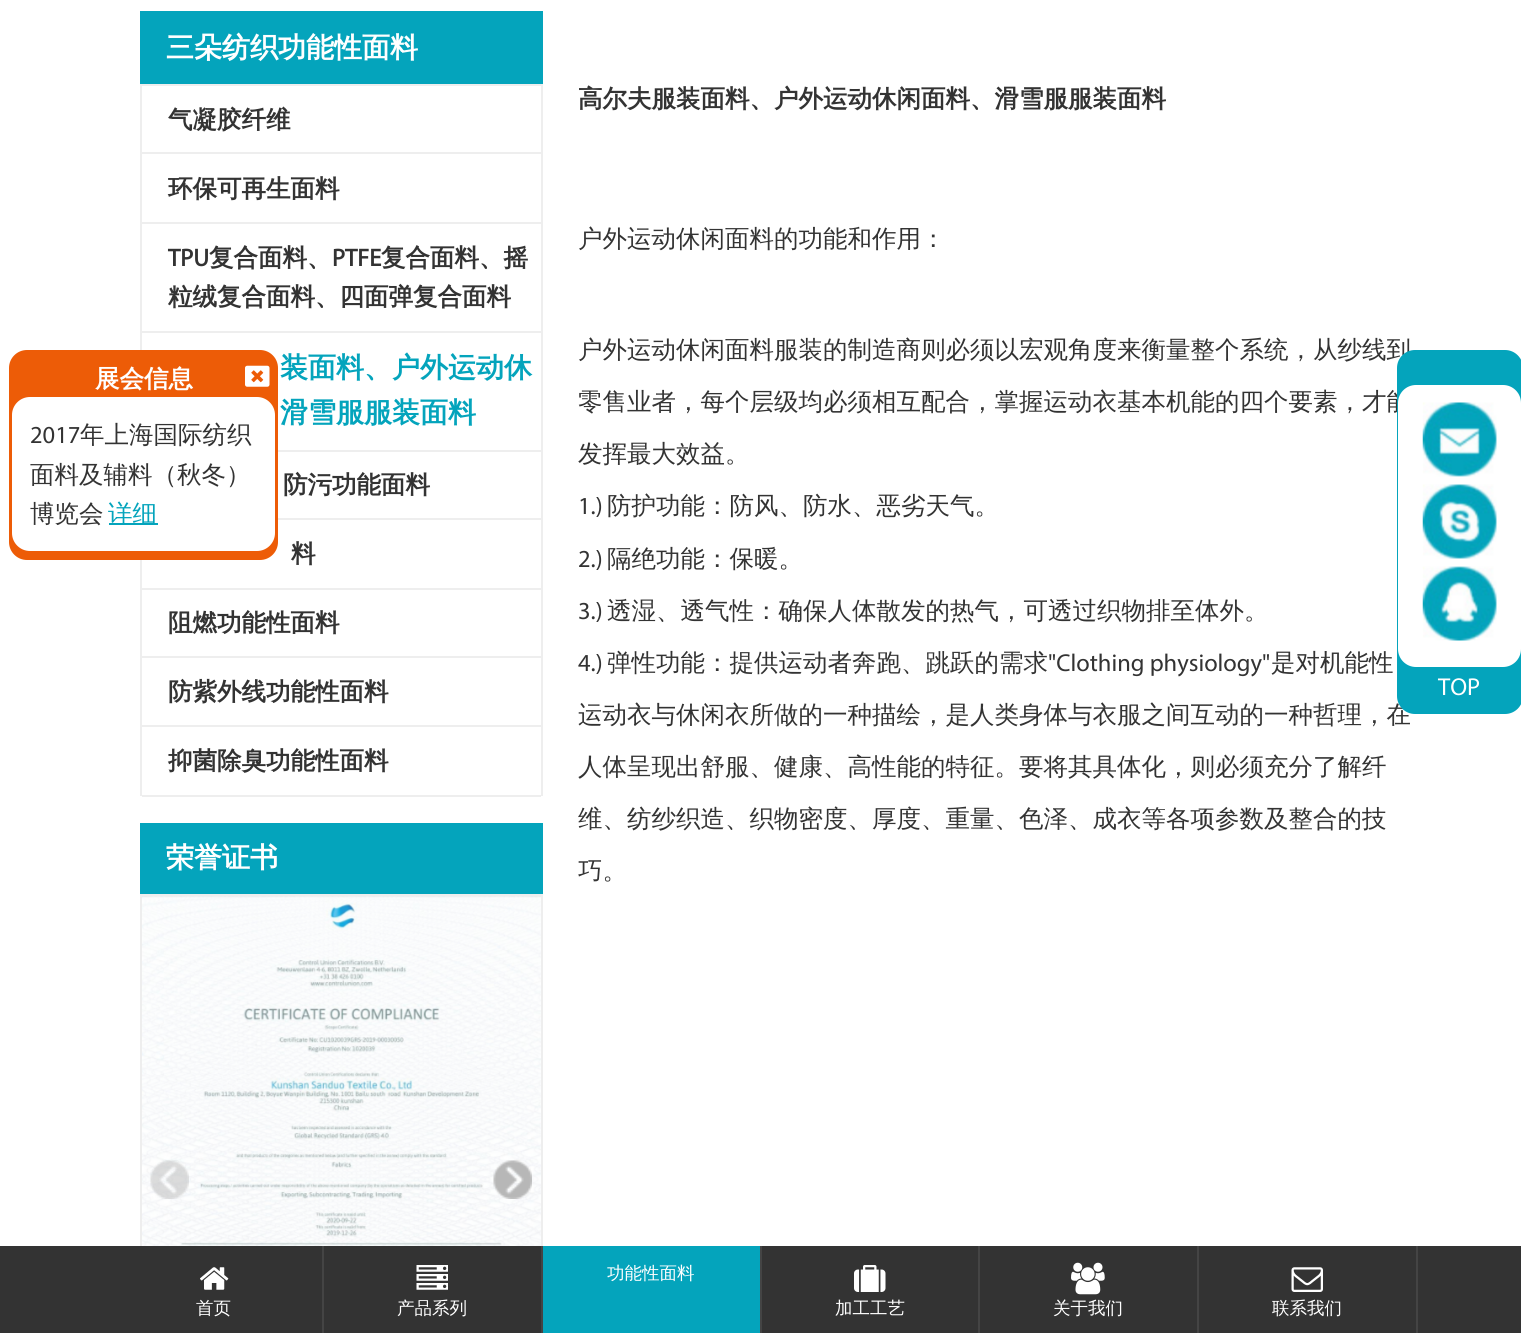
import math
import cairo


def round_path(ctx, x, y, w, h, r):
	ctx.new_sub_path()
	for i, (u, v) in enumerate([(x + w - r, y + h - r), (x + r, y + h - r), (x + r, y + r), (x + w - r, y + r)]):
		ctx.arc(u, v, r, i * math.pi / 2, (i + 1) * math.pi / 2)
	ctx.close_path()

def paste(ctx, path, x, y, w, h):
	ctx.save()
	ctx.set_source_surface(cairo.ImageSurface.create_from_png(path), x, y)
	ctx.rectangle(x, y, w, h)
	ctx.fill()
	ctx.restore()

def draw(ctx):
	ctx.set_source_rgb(1, 1, 1)
	ctx.paint()
	ctx.set_source_rgb(0.933, 0.933, 0.933)
	ctx.rectangle(140, 84, 403, 2)
	ctx.fill()
	ctx.rectangle(140, 84, 2, 712)
	ctx.fill()
	ctx.set_source_rgb(0.929, 0.361, 0.031)
	round_path(ctx, 9, 350, 269, 210, 18)
	ctx.fill()
	ctx.select_font_face('WenQuanYi Zen Hei', cairo.FONT_SLANT_NORMAL, cairo.FONT_WEIGHT_BOLD)
	ctx.set_font_size(24.5)
	ctx.set_source_rgb(1, 1, 1)
	ctx.move_to(95, 387)
	ctx.show_text('展会信息')
	paste(ctx, 'media/1.png', 245, 365, 25, 22)
	round_path(ctx, 12, 397, 263, 154, 18)
	ctx.fill()
	ctx.select_font_face('Myriad')
	ctx.set_source_rgb(0.2, 0.2, 0.2)
	ctx.move_to(30, 443)
	ctx.show_text('2017')
	ctx.select_font_face('WenQuanYi Zen Hei Medium')
	for x, y, s in [
		(80, 443, '年上海国际纺织'),
		(30, 483, '面料及辅料（秋冬）'),
		(30, 522, '博览会'),
	]:
		ctx.move_to(x, y)
		ctx.show_text(s)
	ctx.set_source_rgb(0.016, 0.643, 0.737)
	ctx.rectangle(109, 523, 49, 2)
	ctx.fill()
	ctx.move_to(108, 522)
	ctx.show_text('详细')
	ctx.rectangle(140, 11, 403, 73)
	ctx.fill()
	ctx.select_font_face('WenQuanYi Zen Hei', cairo.FONT_SLANT_NORMAL, cairo.FONT_WEIGHT_BOLD)
	ctx.set_font_size(28)
	ctx.set_source_rgb(1, 1, 1)
	ctx.move_to(166, 57)
	ctx.show_text('三朵纺织功能性面料')
	ctx.set_source_rgb(0.933, 0.933, 0.933)
	ctx.rectangle(541, 84, 2, 712)
	ctx.fill()
	ctx.rectangle(142, 152, 399, 2)
	ctx.fill()
	ctx.set_font_size(24.5)
	ctx.set_source_rgb(0.2, 0.2, 0.2)
	ctx.move_to(168, 128)
	ctx.show_text('气凝胶纤维')
	ctx.set_source_rgb(0.933, 0.933, 0.933)
	ctx.rectangle(142, 222, 399, 2)
	ctx.fill()
	ctx.set_source_rgb(0.2, 0.2, 0.2)
	ctx.move_to(168, 197)
	ctx.show_text('环保可再生面料')
	ctx.set_source_rgb(0.933, 0.933, 0.933)
	ctx.rectangle(142, 331, 399, 2)
	ctx.fill()
	ctx.select_font_face('Myriad', cairo.FONT_SLANT_NORMAL, cairo.FONT_WEIGHT_BOLD)
	ctx.set_source_rgb(0.2, 0.2, 0.2)
	ctx.move_to(168, 266)
	ctx.show_text('TPU')
	ctx.select_font_face('WenQuanYi Zen Hei', cairo.FONT_SLANT_NORMAL, cairo.FONT_WEIGHT_BOLD)
	ctx.move_to(209, 266)
	ctx.show_text('复合面料、')
	ctx.select_font_face('Myriad', cairo.FONT_SLANT_NORMAL, cairo.FONT_WEIGHT_BOLD)
	ctx.move_to(332, 266)
	ctx.show_text('PTFE')
	ctx.select_font_face('WenQuanYi Zen Hei', cairo.FONT_SLANT_NORMAL, cairo.FONT_WEIGHT_BOLD)
	ctx.move_to(381, 266)
	ctx.show_text('复合面料、摇')
	ctx.move_to(168, 305)
	ctx.show_text('粒绒复合面料、四面弹复合面料')
	ctx.set_source_rgb(0.933, 0.933, 0.933)
	ctx.rectangle(278, 450, 263, 2)
	ctx.fill()
	ctx.set_font_size(28)
	ctx.set_source_rgb(0.016, 0.643, 0.737)
	ctx.move_to(280, 377)
	ctx.show_text('装面料、户外运动休')
	ctx.move_to(280, 422)
	ctx.show_text('滑雪服服装面料')
	ctx.set_source_rgb(0.933, 0.933, 0.933)
	ctx.rectangle(278, 518, 263, 2)
	ctx.fill()
	ctx.set_font_size(24.5)
	ctx.set_source_rgb(0.2, 0.2, 0.2)
	ctx.move_to(283, 493)
	ctx.show_text('防污功能面料')
	ctx.set_source_rgb(0.933, 0.933, 0.933)
	ctx.rectangle(142, 588, 399, 2)
	ctx.fill()
	ctx.set_source_rgb(0.2, 0.2, 0.2)
	ctx.move_to(291, 562)
	ctx.show_text('料')
	ctx.set_source_rgb(0.933, 0.933, 0.933)
	ctx.rectangle(142, 656, 399, 2)
	ctx.fill()
	ctx.set_source_rgb(0.2, 0.2, 0.2)
	ctx.move_to(168, 631)
	ctx.show_text('阻燃功能性面料')
	ctx.set_source_rgb(0.933, 0.933, 0.933)
	ctx.rectangle(142, 725, 399, 2)
	ctx.fill()
	ctx.set_source_rgb(0.2, 0.2, 0.2)
	ctx.move_to(168, 700)
	ctx.show_text('防紫外线功能性面料')
	ctx.set_source_rgb(0.933, 0.933, 0.933)
	ctx.rectangle(142, 795, 399, 2)
	ctx.fill()
	ctx.set_source_rgb(0.2, 0.2, 0.2)
	ctx.move_to(168, 769)
	ctx.show_text('抑菌除臭功能性面料')
	ctx.set_source_rgb(0.016, 0.643, 0.737)
	ctx.rectangle(140, 823, 403, 71)
	ctx.fill()
	ctx.set_font_size(28)
	ctx.set_source_rgb(1, 1, 1)
	ctx.move_to(166, 867)
	ctx.show_text('荣誉证书')
	ctx.rectangle(141, 895, 401, 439)
	ctx.set_source_rgb(0.933, 0.933, 0.933)
	ctx.stroke()
	paste(ctx, 'media/2.png', 142, 896, 399, 350)
	paste(ctx, 'media/3.png', 150, 1160, 39, 39)
	paste(ctx, 'media/4.png', 493, 1160, 39, 39)
	ctx.set_font_size(24.5)
	ctx.set_source_rgb(0.2, 0.2, 0.2)
	ctx.move_to(578, 107)
	ctx.show_text('高尔夫服装面料、户外运动休闲面料、滑雪服服装面料')
	ctx.select_font_face('WenQuanYi Zen Hei Medium')
	for x, y, s in [
		(578, 247, '户外运动休闲面料的功能和作用：'),
		(578, 358, '户外运动休闲面料服装的制造商则必须以宏观角度来衡量整个系统，从纱线到'),
		(578, 410, '零售业者，每个层级均必须相互配合，掌握运动衣基本机能的四个要素，才能'),
		(578, 462, '发挥最大效益。'),
	]:
		ctx.move_to(x, y)
		ctx.show_text(s)
	ctx.select_font_face('Myriad')
	ctx.move_to(578, 514)
	ctx.show_text('1.)')
	ctx.select_font_face('WenQuanYi Zen Hei Medium')
	ctx.move_to(607, 514)
	ctx.show_text('防护功能：防风、防水、恶劣天气。')
	ctx.select_font_face('Myriad')
	ctx.move_to(578, 567)
	ctx.show_text('2.)')
	ctx.select_font_face('WenQuanYi Zen Hei Medium')
	ctx.move_to(607, 567)
	ctx.show_text('隔绝功能：保暖。')
	ctx.select_font_face('Myriad')
	ctx.move_to(578, 619)
	ctx.show_text('3.)')
	ctx.select_font_face('WenQuanYi Zen Hei Medium')
	ctx.move_to(607, 619)
	ctx.show_text('透湿、透气性：确保人体散发的热气，可透过织物排至体外。')
	ctx.select_font_face('Myriad')
	ctx.move_to(578, 671)
	ctx.show_text('4.)')
	ctx.select_font_face('WenQuanYi Zen Hei Medium')
	ctx.move_to(607, 671)
	ctx.show_text('弹性功能：提供运动者奔跑、跳跃的需求')
	ctx.select_font_face('Myriad')
	ctx.move_to(1048, 671)
	ctx.show_text('"Clothing physiology"')
	ctx.select_font_face('WenQuanYi Zen Hei Medium')
	for x, y, s in [
		(1271, 671, '是对机能性'),
		(578, 723, '运动衣与休闲衣所做的一种描绘，是人类身体与衣服之间互动的一种哲理，在'),
		(578, 775, '人体呈现出舒服、健康、高性能的特征。要将其具体化，则必须充分了解纤'),
		(578, 827, '维、纺纱织造、织物密度、厚度、重量、色泽、成衣等各项参数及整合的技'),
		(578, 879, '巧。'),
	]:
		ctx.move_to(x, y)
		ctx.show_text(s)
	ctx.set_source_rgb(0.016, 0.643, 0.737)
	round_path(ctx, 1397, 350, 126, 364, 18)
	ctx.fill()
	ctx.set_source_rgb(1, 1, 1)
	round_path(ctx, 1398, 385, 123, 282, 18)
	ctx.fill()
	paste(ctx, 'media/5.png', 1422, 402, 75, 75)
	paste(ctx, 'media/6.png', 1422, 484, 75, 75)
	paste(ctx, 'media/7.png', 1422, 566, 75, 75)
	ctx.select_font_face('Myriad')
	ctx.move_to(1438, 695)
	ctx.show_text('TOP')
	ctx.set_source_rgb(0.2, 0.2, 0.2)
	ctx.rectangle(0, 1246, 1521, 87)
	ctx.fill()
	ctx.set_source_rgb(0.267, 0.267, 0.267)
	ctx.rectangle(760, 1246, 2, 87)
	ctx.fill()
	ctx.set_source_rgb(0.016, 0.643, 0.737)
	ctx.rectangle(543, 1246, 217, 87)
	ctx.fill()
	ctx.select_font_face('WenQuanYi Zen Hei Medium')
	ctx.set_font_size(17.5)
	ctx.set_source_rgb(1, 1, 1)
	ctx.move_to(607, 1279)
	ctx.show_text('功能性面料')
	ctx.set_source_rgb(0.267, 0.267, 0.267)
	ctx.rectangle(322, 1246, 2, 87)
	ctx.fill()
	paste(ctx, 'media/8.png', 200, 1267, 29, 23)
	ctx.set_source_rgb(1, 1, 1)
	ctx.move_to(196, 1314)
	ctx.show_text('首页')
	ctx.set_source_rgb(0.267, 0.267, 0.267)
	ctx.rectangle(541, 1246, 2, 87)
	ctx.fill()
	paste(ctx, 'media/9.png', 416, 1265, 32, 25)
	ctx.set_source_rgb(1, 1, 1)
	ctx.move_to(397, 1314)
	ctx.show_text('产品系列')
	ctx.set_source_rgb(0.267, 0.267, 0.267)
	ctx.rectangle(978, 1246, 2, 87)
	ctx.fill()
	paste(ctx, 'media/10.png', 854, 1265, 32, 27)
	ctx.set_source_rgb(1, 1, 1)
	ctx.move_to(835, 1314)
	ctx.show_text('加工工艺')
	ctx.set_source_rgb(0.267, 0.267, 0.267)
	ctx.rectangle(1197, 1246, 2, 87)
	ctx.fill()
	paste(ctx, 'media/11.png', 1071, 1262, 34, 33)
	ctx.set_source_rgb(1, 1, 1)
	ctx.move_to(1053, 1314)
	ctx.show_text('关于我们')
	ctx.set_source_rgb(0.267, 0.267, 0.267)
	ctx.rectangle(1416, 1246, 2, 87)
	ctx.fill()
	paste(ctx, 'media/12.png', 1291, 1267, 32, 25)
	ctx.set_source_rgb(1, 1, 1)
	ctx.move_to(1272, 1314)
	ctx.show_text('联系我们')


surface = cairo.ImageSurface(cairo.FORMAT_RGB24, 1521, 1333)
ctx = cairo.Context(surface)
options = cairo.FontOptions()
options.set_hint_metrics(cairo.HINT_METRICS_OFF)
options.set_hint_style(cairo.HINT_STYLE_NONE)
ctx.set_font_options(options)
ctx.set_miter_limit(4)
draw(ctx)
surface.write_to_png('image.png')
